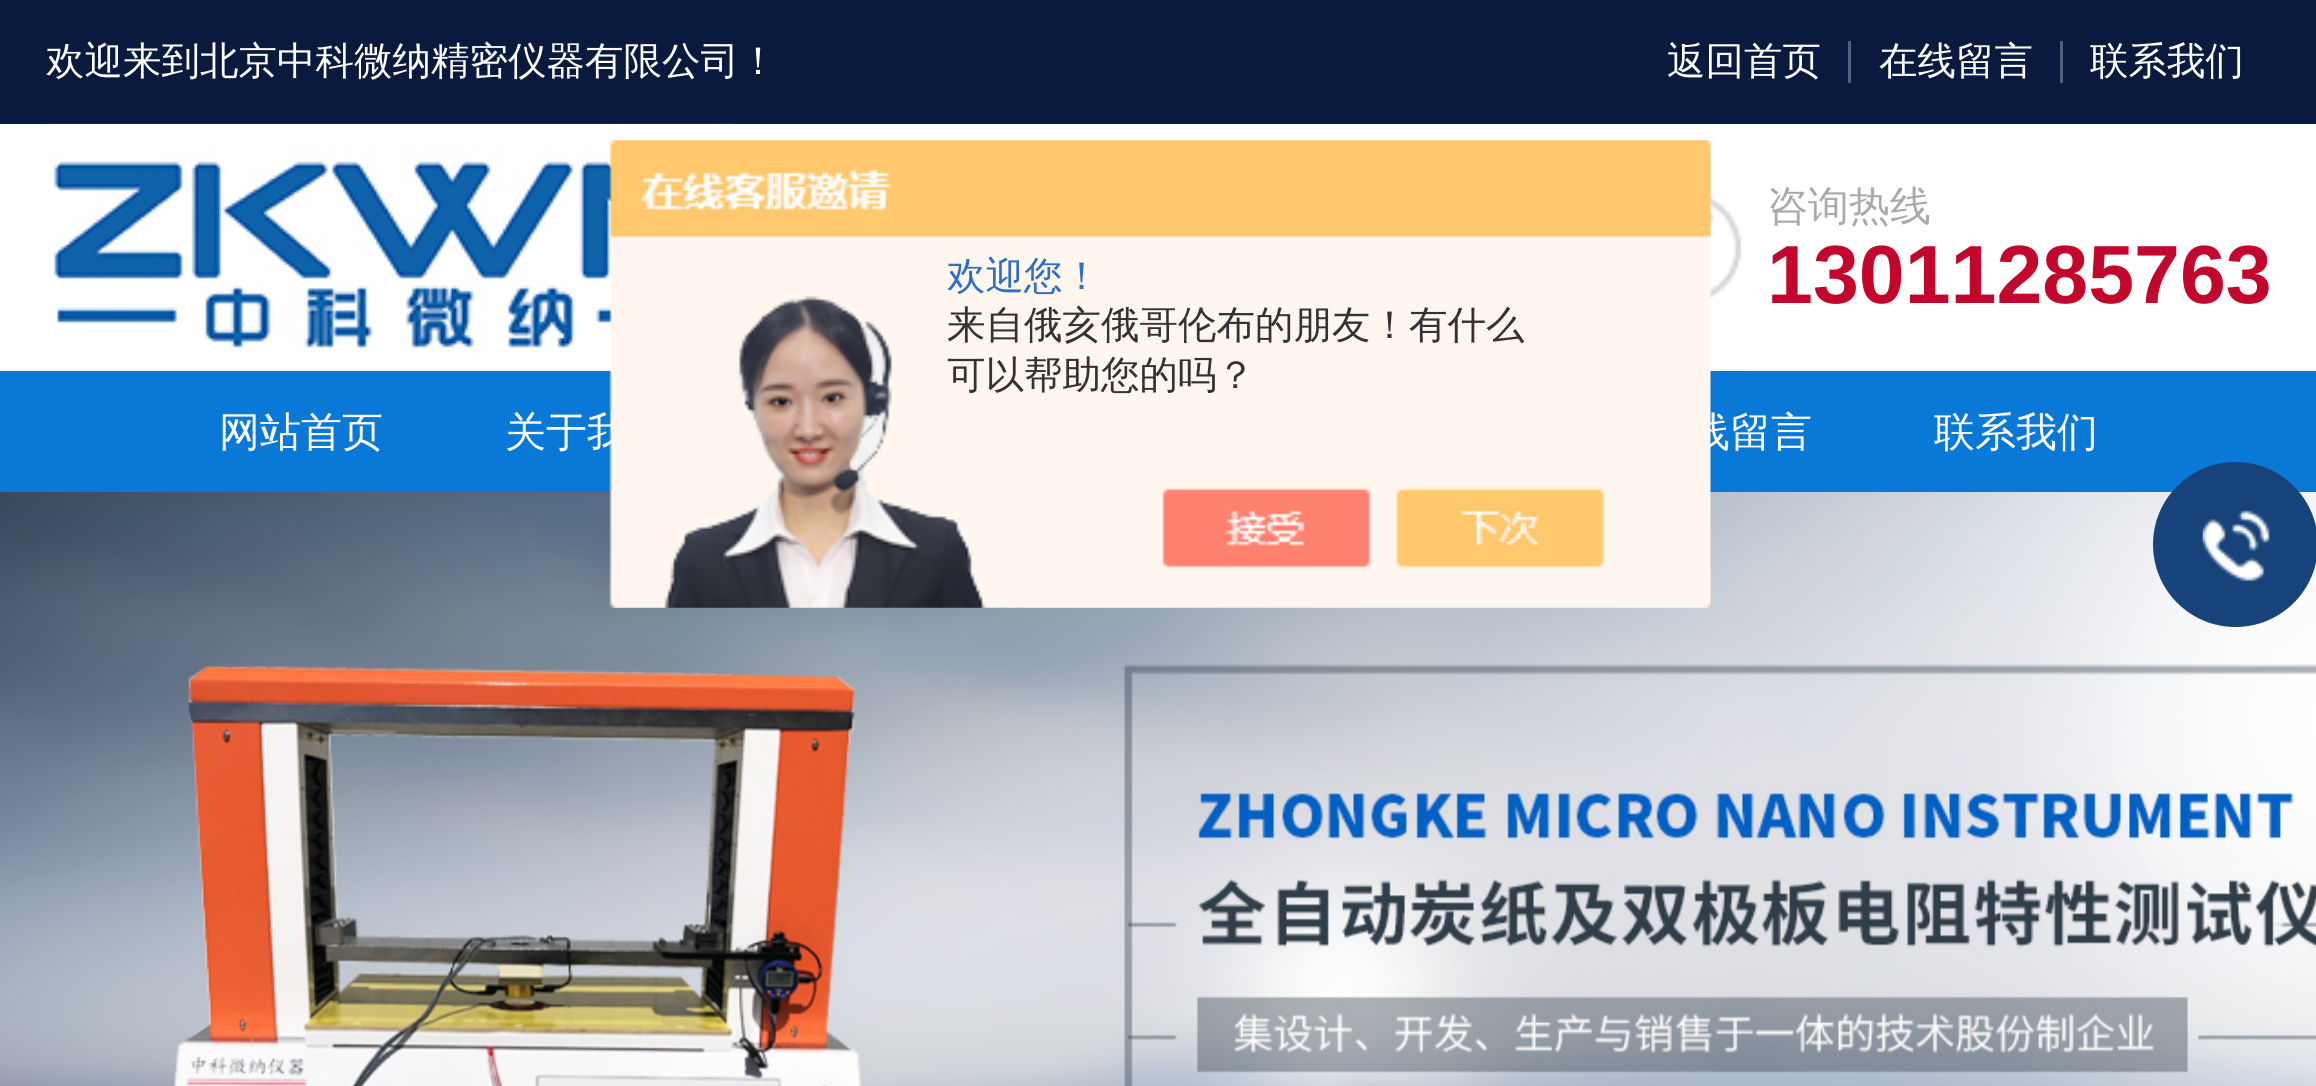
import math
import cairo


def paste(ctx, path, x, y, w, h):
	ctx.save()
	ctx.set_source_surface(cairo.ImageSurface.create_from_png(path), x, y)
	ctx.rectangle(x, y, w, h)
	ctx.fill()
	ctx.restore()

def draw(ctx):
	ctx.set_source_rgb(1, 1, 1)
	ctx.paint()
	ctx.set_source_rgb(0.039, 0.102, 0.243)
	ctx.rectangle(0, 0, 2316, 124)
	ctx.fill()
	ctx.select_font_face('WenQuanYi Zen Hei Medium')
	ctx.set_font_size(38.5)
	ctx.set_source_rgb(1, 1, 1)
	ctx.move_to(46, 74)
	ctx.show_text('欢迎来到北京中科微纳精密仪器有限公司！')
	ctx.move_to(1667, 74)
	ctx.show_text('返回首页')
	ctx.set_source_rgb(0.329, 0.373, 0.471)
	ctx.rectangle(1848, 41, 3, 42)
	ctx.fill()
	ctx.set_source_rgb(1, 1, 1)
	ctx.move_to(1879, 74)
	ctx.show_text('在线留言')
	ctx.set_source_rgb(0.329, 0.373, 0.471)
	ctx.rectangle(2060, 41, 3, 42)
	ctx.fill()
	ctx.set_source_rgb(1, 1, 1)
	ctx.move_to(2090, 74)
	ctx.show_text('联系我们')
	paste(ctx, 'media/1.png', 47, 123, 687, 231)
	paste(ctx, 'media/2.png', 1710, 196, 31, 102)
	ctx.set_font_size(41)
	ctx.set_source_rgb(0.667, 0.667, 0.667)
	ctx.move_to(1767, 220)
	ctx.show_text('咨询热线')
	ctx.select_font_face('Liberation Sans', cairo.FONT_SLANT_NORMAL, cairo.FONT_WEIGHT_BOLD)
	ctx.set_font_size(82.5)
	ctx.set_source_rgb(0.765, 0.024, 0.173)
	ctx.move_to(1767, 303)
	ctx.show_text('13011285763')
	ctx.set_source_rgb(0.039, 0.471, 0.843)
	ctx.rectangle(0, 371, 2316, 121)
	ctx.fill()
	ctx.select_font_face('WenQuanYi Zen Hei Medium')
	ctx.set_font_size(41)
	ctx.set_source_rgb(1, 1, 1)
	for x, y, s in [
		(219, 446, '网站首页'),
		(505, 446, '关于我'),
		(1689, 446, '线留言'),
		(1934, 446, '联系我们'),
	]:
		ctx.move_to(x, y)
		ctx.show_text(s)
	paste(ctx, 'media/5.png', 0, 492, 2316, 594)
	paste(ctx, 'media/3.png', 609, 140, 1102, 468)
	ctx.set_font_size(38.5)
	ctx.set_source_rgb(0.18, 0.431, 0.776)
	ctx.move_to(947, 289)
	ctx.show_text('欢迎您！')
	ctx.set_source_rgb(0.2, 0.2, 0.2)
	ctx.move_to(947, 338)
	ctx.show_text('来自俄亥俄哥伦布的朋友！有什么')
	ctx.move_to(947, 388)
	ctx.show_text('可以帮助您的吗？')
	ctx.set_source_rgb(0.094, 0.263, 0.478)
	ctx.new_path()
	ctx.arc(2235.5, 544.5, 82.5, 0, 2 * math.pi)
	ctx.fill()
	paste(ctx, 'media/4.png', 2202, 510, 68, 72)


surface = cairo.ImageSurface(cairo.FORMAT_RGB24, 2316, 1086)
ctx = cairo.Context(surface)
options = cairo.FontOptions()
options.set_hint_metrics(cairo.HINT_METRICS_OFF)
options.set_hint_style(cairo.HINT_STYLE_NONE)
ctx.set_font_options(options)
ctx.set_miter_limit(4)
draw(ctx)
surface.write_to_png('image.png')
